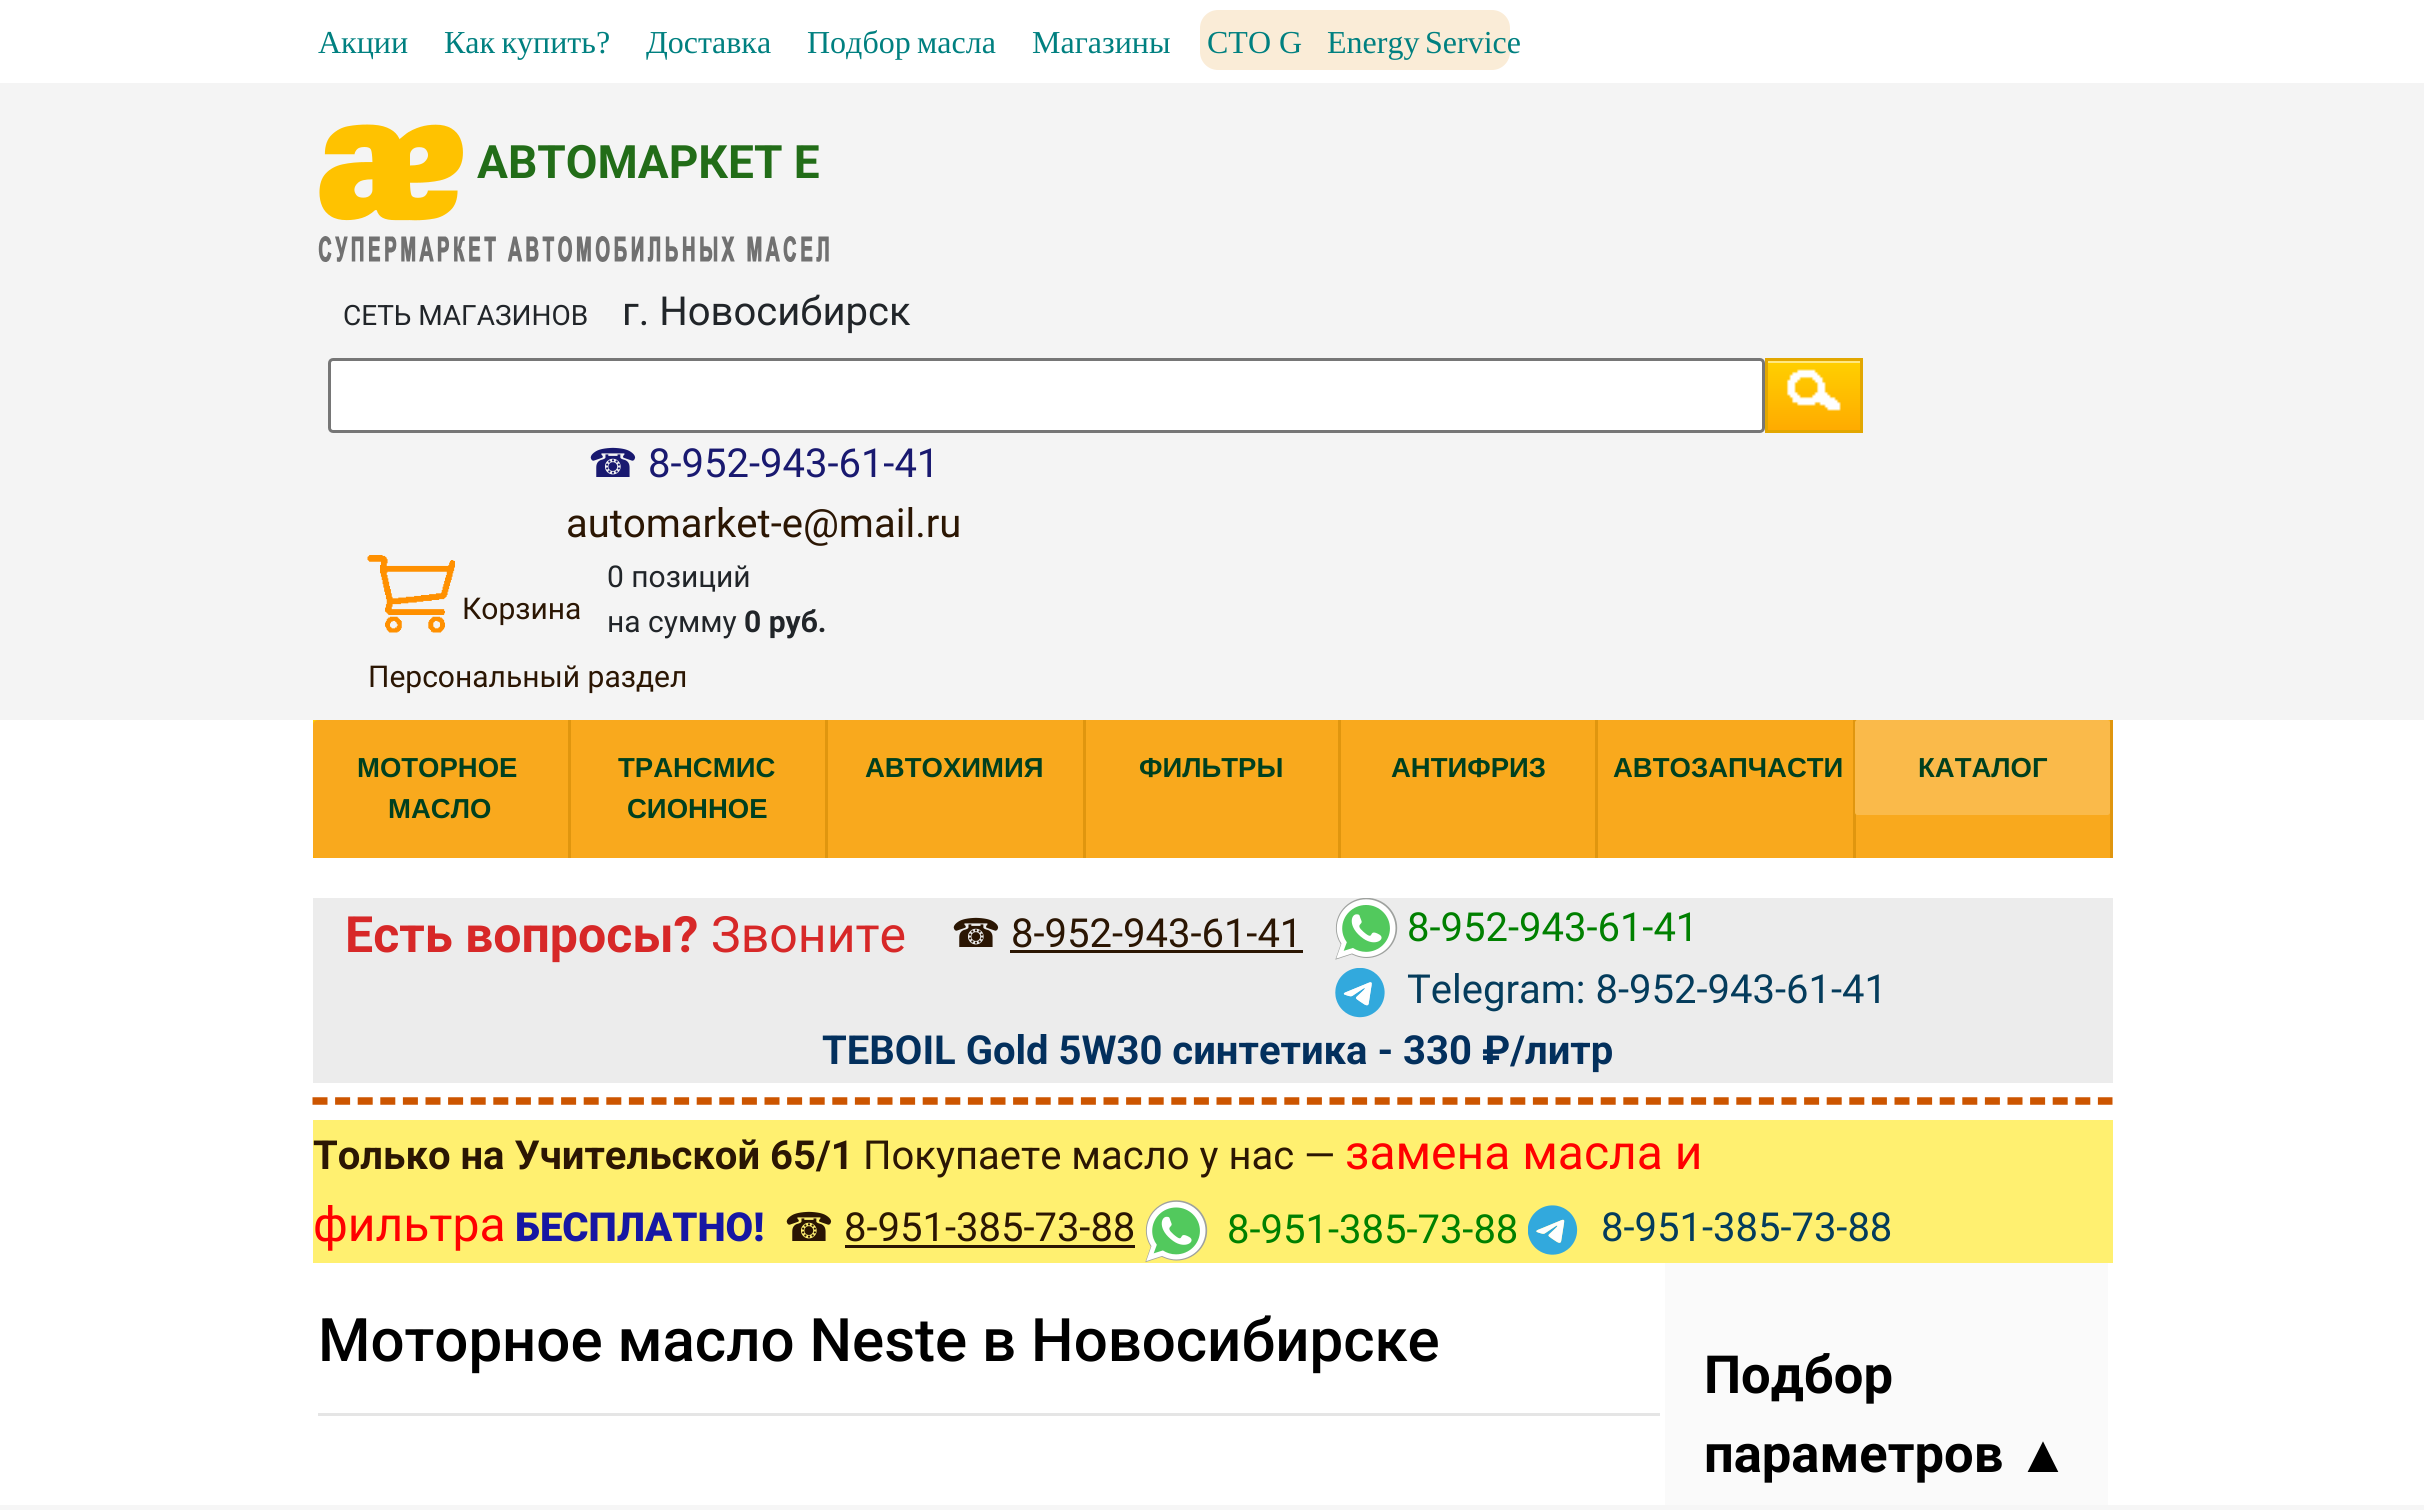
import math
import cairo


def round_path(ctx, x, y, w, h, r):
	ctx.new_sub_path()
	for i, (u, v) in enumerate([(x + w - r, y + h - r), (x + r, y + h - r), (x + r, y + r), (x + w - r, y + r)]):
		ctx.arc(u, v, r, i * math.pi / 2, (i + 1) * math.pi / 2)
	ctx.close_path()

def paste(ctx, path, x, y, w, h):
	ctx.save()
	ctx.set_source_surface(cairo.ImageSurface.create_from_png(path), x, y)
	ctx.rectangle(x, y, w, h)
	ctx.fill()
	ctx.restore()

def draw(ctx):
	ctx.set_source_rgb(1, 1, 1)
	ctx.paint()
	ctx.select_font_face('Liberation Serif')
	ctx.set_font_size(32)
	ctx.set_source_rgb(0, 0.502, 0.502)
	for x, y, s in [
		(318, 53, 'Акции'),
		(444, 53, 'Как купить?'),
		(646, 53, 'Доставка'),
		(807, 53, 'Подбор масла'),
		(1032, 53, 'Магазины'),
	]:
		ctx.move_to(x, y)
		ctx.show_text(s)
	ctx.set_source_rgb(0.98, 0.922, 0.843)
	round_path(ctx, 1200, 10, 310, 60, 18)
	ctx.fill()
	ctx.set_source_rgb(0, 0.502, 0.502)
	ctx.move_to(1207, 53)
	ctx.show_text('СТО G‑Energy')
	ctx.move_to(1425, 53)
	ctx.show_text('Service')
	ctx.set_source_rgb(0.957, 0.957, 0.957)
	ctx.rectangle(0, 83, 2424, 637)
	ctx.fill()
	paste(ctx, 'media/1.png', 319, 124, 144, 97)
	ctx.select_font_face('Roboto', cairo.FONT_SLANT_NORMAL, cairo.FONT_WEIGHT_BOLD)
	ctx.set_font_size(46)
	ctx.set_source_rgb(0.133, 0.427, 0.094)
	ctx.move_to(477, 178)
	ctx.show_text('АВТОМАРКЕТ Е')
	paste(ctx, 'media/2.png', 318, 236, 511, 26)
	ctx.select_font_face('Roboto')
	ctx.set_font_size(28)
	ctx.set_source_rgb(0.129, 0.145, 0.161)
	ctx.move_to(343, 325)
	ctx.show_text('СЕТЬ МАГАЗИНОВ')
	ctx.set_font_size(40)
	ctx.move_to(622, 325)
	ctx.show_text('г. Новосибирск')
	ctx.set_source_rgb(1, 1, 1)
	round_path(ctx, 329.5, 359.5, 1434, 72, 3.5)
	ctx.fill_preserve()
	ctx.set_source_rgb(0.463, 0.463, 0.463)
	ctx.set_line_width(3)
	ctx.stroke()
	gradient = cairo.LinearGradient(1814, 360, 1814, 430)
	gradient.add_color_stop_rgba(0, 1, 0.816, 0, 1)
	gradient.add_color_stop_rgba(1, 1, 0.671, 0, 1)
	ctx.set_source(gradient)
	ctx.rectangle(1768, 363, 92, 67)
	ctx.fill()
	ctx.set_source_rgb(1, 0.91, 0.502)
	ctx.rectangle(1768, 361, 92, 2)
	ctx.fill()
	ctx.rectangle(1766.5, 359.5, 95, 72)
	ctx.set_source_rgb(0.886, 0.655, 0)
	ctx.stroke()
	paste(ctx, 'media/3.png', 1786, 369, 55, 42)
	ctx.select_font_face('DejaVu Sans')
	ctx.set_source_rgb(0.098, 0.098, 0.439)
	ctx.move_to(588, 477)
	ctx.show_text('☎')
	ctx.select_font_face('Roboto')
	ctx.move_to(648, 477)
	ctx.show_text('8‑952‑943‑61‑41')
	ctx.set_source_rgb(0.169, 0.086, 0.012)
	ctx.move_to(566, 537)
	ctx.show_text('automarket-e@mail.ru')
	ctx.set_font_size(30)
	ctx.set_source_rgb(0.129, 0.145, 0.161)
	ctx.move_to(607, 587)
	ctx.show_text('0 позиций')
	paste(ctx, 'media/4.png', 367, 555, 88, 78)
	ctx.set_source_rgb(0.169, 0.086, 0.012)
	ctx.move_to(462, 619)
	ctx.show_text('Корзина')
	ctx.set_source_rgb(0.129, 0.145, 0.161)
	ctx.move_to(607, 632)
	ctx.show_text('на сумму')
	ctx.select_font_face('Roboto', cairo.FONT_SLANT_NORMAL, cairo.FONT_WEIGHT_BOLD)
	ctx.move_to(744, 632)
	ctx.show_text('0 руб.')
	ctx.select_font_face('Roboto')
	ctx.set_source_rgb(0.169, 0.086, 0.012)
	ctx.move_to(368, 687)
	ctx.show_text('Персональный раздел')
	gradient = cairo.LinearGradient(1213, 720, 1213, 858)
	gradient.add_color_stop_rgba(0, 1, 0.816, 0, 1)
	gradient.add_color_stop_rgba(1, 1, 0.671, 0, 1)
	ctx.set_source(gradient)
	ctx.rectangle(313, 720, 1797, 138)
	ctx.fill()
	ctx.set_source_rgb(0.976, 0.663, 0.114)
	round_path(ctx, 313, 720, 1800, 138, 5)
	ctx.fill()
	ctx.set_source_rgb(0.878, 0.588, 0.059)
	ctx.rectangle(568, 720, 3, 138)
	ctx.fill()
	ctx.select_font_face('Liberation Sans', cairo.FONT_SLANT_NORMAL, cairo.FONT_WEIGHT_BOLD)
	ctx.set_font_size(27.5)
	ctx.set_source_rgb(0, 0.251, 0.122)
	ctx.move_to(357, 777)
	ctx.show_text('МОТОРНОЕ')
	ctx.move_to(388, 818)
	ctx.show_text('МАСЛО')
	ctx.set_source_rgb(0.878, 0.588, 0.059)
	ctx.rectangle(825, 720, 3, 138)
	ctx.fill()
	ctx.set_source_rgb(0, 0.251, 0.122)
	ctx.move_to(618, 777)
	ctx.show_text('ТРАНСМИС')
	ctx.move_to(627, 818)
	ctx.show_text('СИОННОЕ')
	ctx.set_source_rgb(0.878, 0.588, 0.059)
	ctx.rectangle(1083, 720, 3, 138)
	ctx.fill()
	ctx.set_source_rgb(0, 0.251, 0.122)
	ctx.move_to(865, 777)
	ctx.show_text('АВТОХИМИЯ')
	ctx.set_source_rgb(0.878, 0.588, 0.059)
	ctx.rectangle(1338, 720, 3, 138)
	ctx.fill()
	ctx.set_source_rgb(0, 0.251, 0.122)
	ctx.move_to(1139, 777)
	ctx.show_text('ФИЛЬТРЫ')
	ctx.set_source_rgb(0.878, 0.588, 0.059)
	ctx.rectangle(1595, 720, 3, 138)
	ctx.fill()
	ctx.set_source_rgb(0, 0.251, 0.122)
	ctx.move_to(1391, 777)
	ctx.show_text('АНТИФРИЗ')
	ctx.set_source_rgb(0.878, 0.588, 0.059)
	ctx.rectangle(1853, 720, 3, 138)
	ctx.fill()
	ctx.set_source_rgb(0, 0.251, 0.122)
	ctx.move_to(1613, 777)
	ctx.show_text('АВТОЗАПЧАСТИ')
	ctx.set_source_rgb(0.878, 0.588, 0.059)
	ctx.rectangle(2110, 720, 3, 138)
	ctx.fill()
	ctx.set_source_rgb(0.98, 0.729, 0.29)
	round_path(ctx, 1855, 720, 255, 95, 2.5)
	ctx.fill()
	ctx.set_source_rgb(0, 0.251, 0.122)
	ctx.move_to(1918, 777)
	ctx.show_text('КАТАЛОГ')
	ctx.set_source_rgb(0.922, 0.922, 0.922)
	ctx.rectangle(313, 898, 1800, 185)
	ctx.fill()
	ctx.select_font_face('Roboto', cairo.FONT_SLANT_NORMAL, cairo.FONT_WEIGHT_BOLD)
	ctx.set_font_size(50)
	ctx.set_source_rgb(0.843, 0.157, 0.157)
	ctx.move_to(345, 952)
	ctx.show_text('Есть вопросы?')
	ctx.select_font_face('Roboto')
	ctx.move_to(711, 952)
	ctx.show_text('Звоните')
	ctx.select_font_face('DejaVu Sans')
	ctx.set_font_size(40)
	ctx.set_source_rgb(0.169, 0.086, 0.012)
	ctx.move_to(951, 947)
	ctx.show_text('☎')
	ctx.select_font_face('Roboto')
	ctx.move_to(1011, 947)
	ctx.show_text('8‑952‑943‑61‑41')
	ctx.rectangle(1010, 950, 293, 3)
	ctx.fill()
	paste(ctx, 'media/5.png', 1335, 898, 63, 62)
	ctx.set_source_rgb(0, 0.502, 0)
	ctx.move_to(1407, 941)
	ctx.show_text('8‑952‑943‑61‑41')
	paste(ctx, 'media/6.png', 1335, 968, 50, 50)
	ctx.set_source_rgb(0.016, 0.235, 0.361)
	ctx.move_to(1407, 1003)
	ctx.show_text('Telegram: 8-952-943-61-41')
	ctx.select_font_face('Roboto', cairo.FONT_SLANT_NORMAL, cairo.FONT_WEIGHT_BOLD)
	ctx.set_source_rgb(0.012, 0.188, 0.365)
	ctx.move_to(822, 1064)
	ctx.show_text('TEBOIL Gold 5W30 синтетика - 330 ₽/литр')
	ctx.new_path()
	ctx.move_to(312.5, 1101)
	ctx.line_to(2112.5, 1101)
	ctx.set_source_rgb(0.8, 0.333, 0)
	ctx.set_line_width(7.5)
	ctx.set_dash([15, 7.6])
	ctx.stroke()
	ctx.set_source_rgb(1, 0.941, 0.439)
	ctx.rectangle(313, 1120, 1800, 143)
	ctx.fill()
	ctx.set_source_rgb(0.169, 0.086, 0.012)
	ctx.move_to(313, 1169)
	ctx.show_text('Только на Учительской 65/1')
	ctx.select_font_face('Roboto')
	ctx.move_to(863, 1169)
	ctx.show_text('Покупаете масло у нас —')
	ctx.set_font_size(48)
	ctx.set_source_rgb(1, 0, 0)
	ctx.move_to(1345, 1169)
	ctx.show_text('замена масла и')
	ctx.move_to(313, 1241)
	ctx.show_text('фильтра')
	ctx.select_font_face('Roboto Black')
	ctx.set_font_size(40)
	ctx.set_source_rgb(0.09, 0.09, 0.639)
	ctx.move_to(515, 1241)
	ctx.show_text('БЕСПЛАТНО!')
	ctx.select_font_face('DejaVu Sans')
	ctx.set_source_rgb(0.169, 0.086, 0.012)
	ctx.move_to(784, 1241)
	ctx.show_text('☎')
	ctx.select_font_face('Roboto')
	ctx.move_to(844, 1241)
	ctx.show_text('8‑951‑385‑73‑88')
	ctx.rectangle(845, 1245, 290, 3)
	ctx.fill()
	paste(ctx, 'media/7.png', 1145, 1200, 63, 63)
	ctx.set_source_rgb(0, 0.502, 0)
	ctx.move_to(1227, 1243)
	ctx.show_text('8‑951‑385‑73‑88')
	paste(ctx, 'media/8.png', 1528, 1205, 50, 50)
	ctx.set_source_rgb(0.016, 0.235, 0.361)
	ctx.move_to(1601, 1241)
	ctx.show_text('8‑951‑385‑73‑88')
	ctx.set_source_rgb(0.898, 0.898, 0.898)
	ctx.rectangle(318, 1413, 1342, 3)
	ctx.fill()
	ctx.select_font_face('Roboto Medium')
	ctx.set_font_size(60)
	ctx.set_source_rgb(0, 0, 0)
	ctx.move_to(318, 1361)
	ctx.show_text('Моторное масло Neste в Новосибирске')
	ctx.set_source_rgb(0.98, 0.98, 0.98)
	ctx.rectangle(1665, 1263, 443, 242)
	ctx.fill()
	ctx.select_font_face('Roboto', cairo.FONT_SLANT_NORMAL, cairo.FONT_WEIGHT_BOLD)
	ctx.set_font_size(52.5)
	ctx.set_source_rgb(0, 0, 0)
	ctx.move_to(1704, 1393)
	ctx.show_text('Подбор')
	ctx.move_to(1704, 1472)
	ctx.show_text('параметров')
	ctx.select_font_face('Liberation Sans', cairo.FONT_SLANT_NORMAL, cairo.FONT_WEIGHT_BOLD)
	ctx.move_to(2017, 1472)
	ctx.show_text('▲')
	ctx.set_source_rgb(0.961, 0.961, 0.961)
	ctx.rectangle(0, 1505, 2424, 5)
	ctx.fill()


surface = cairo.ImageSurface(cairo.FORMAT_RGB24, 2424, 1510)
ctx = cairo.Context(surface)
options = cairo.FontOptions()
options.set_hint_metrics(cairo.HINT_METRICS_OFF)
options.set_hint_style(cairo.HINT_STYLE_NONE)
ctx.set_font_options(options)
ctx.set_miter_limit(4)
draw(ctx)
surface.write_to_png('image.png')
